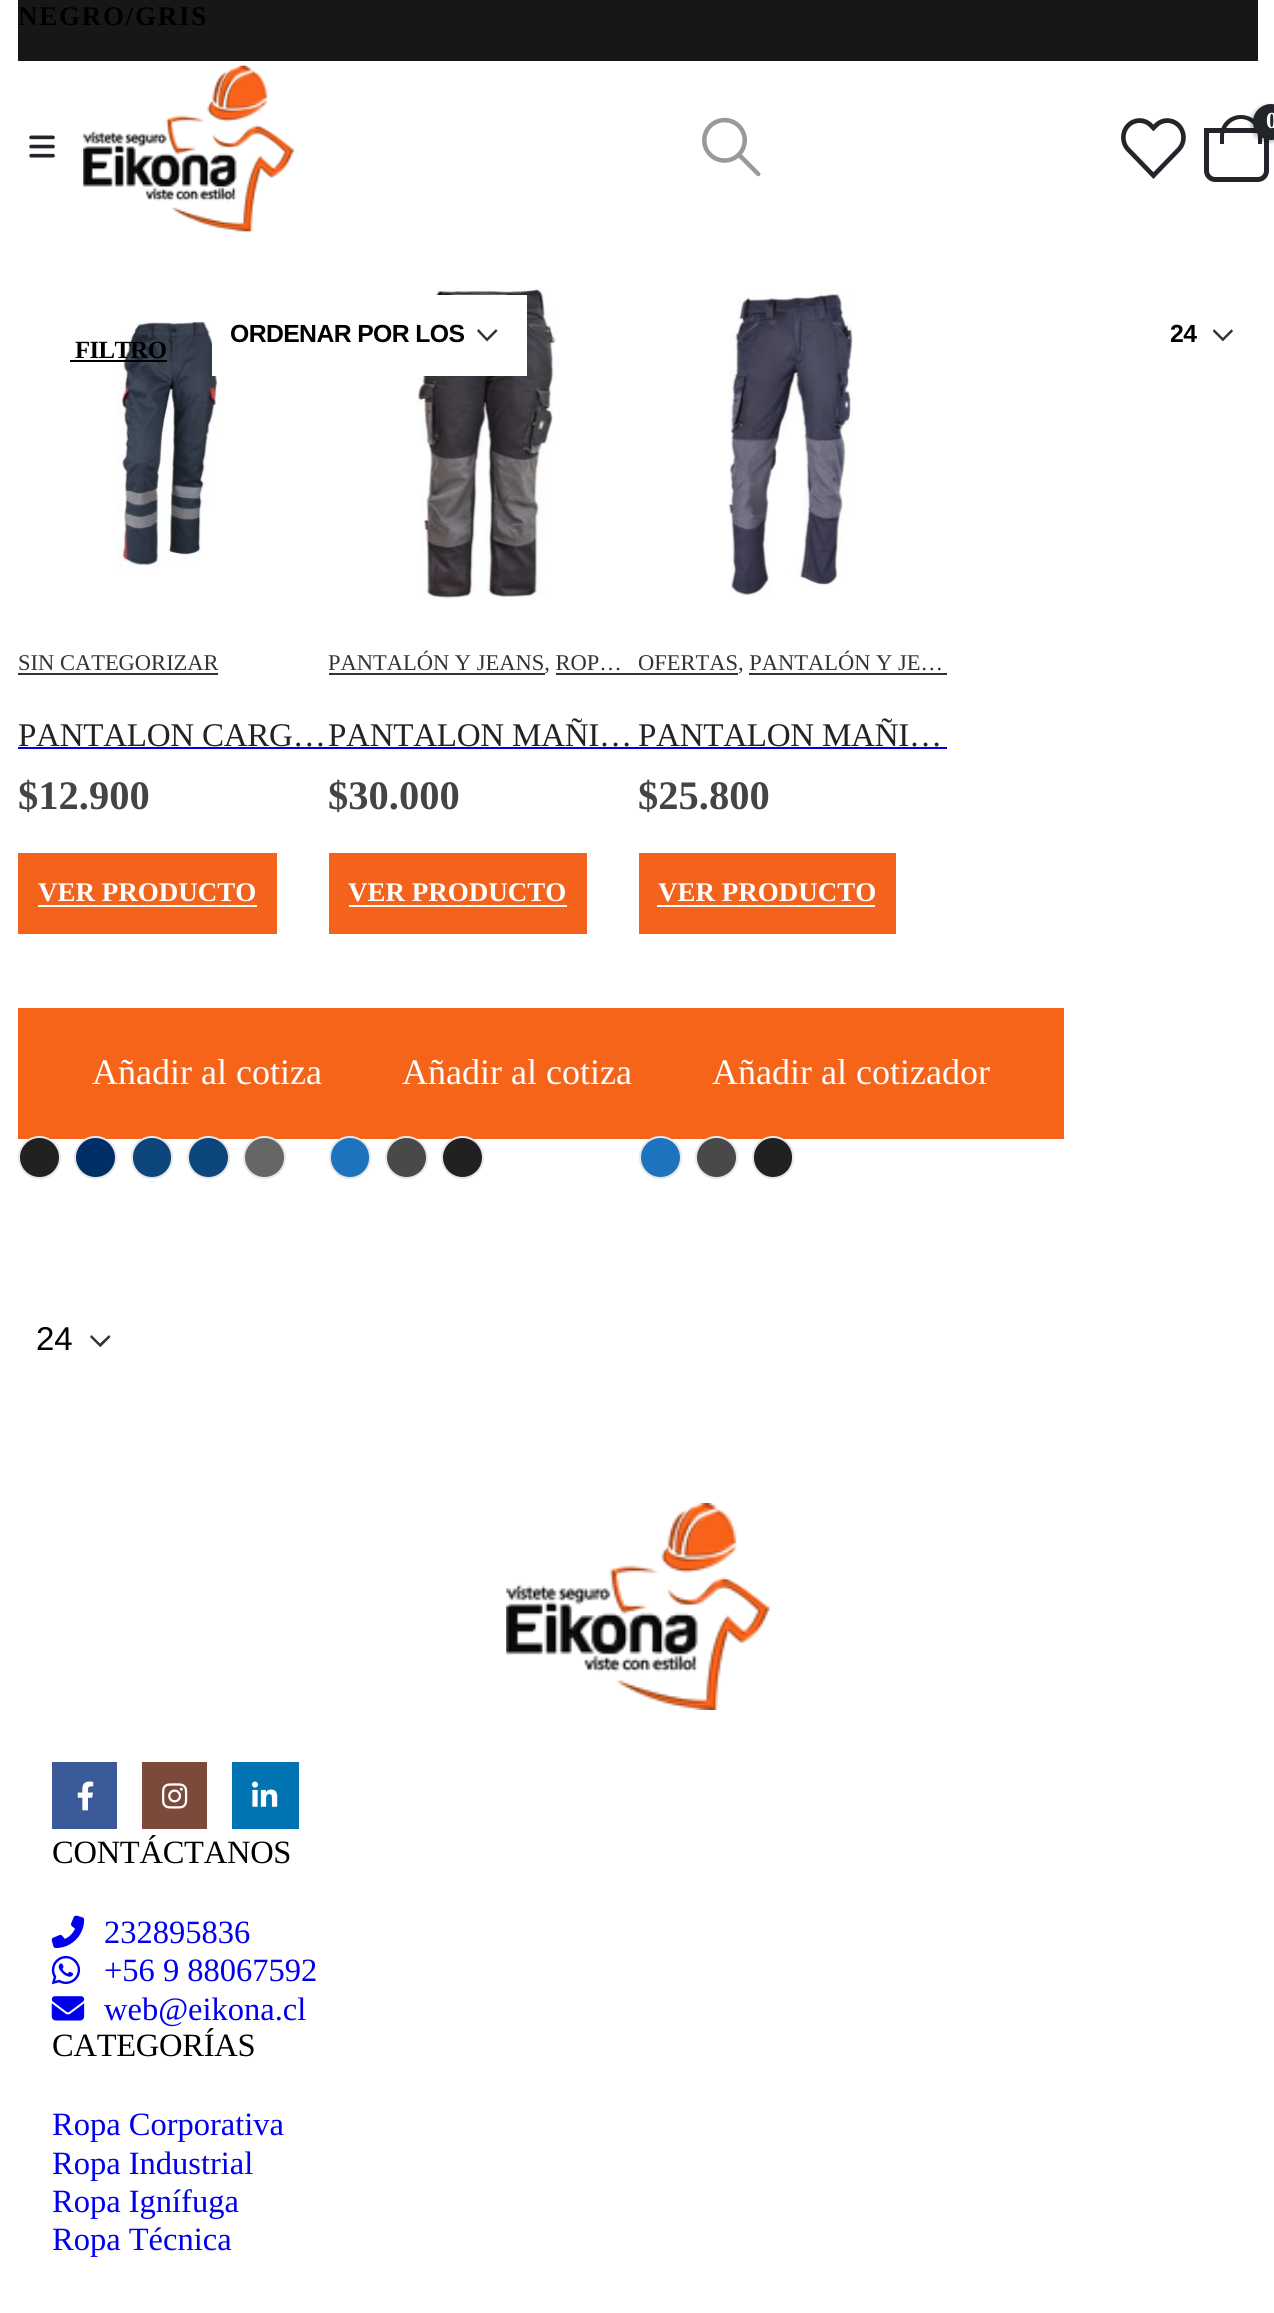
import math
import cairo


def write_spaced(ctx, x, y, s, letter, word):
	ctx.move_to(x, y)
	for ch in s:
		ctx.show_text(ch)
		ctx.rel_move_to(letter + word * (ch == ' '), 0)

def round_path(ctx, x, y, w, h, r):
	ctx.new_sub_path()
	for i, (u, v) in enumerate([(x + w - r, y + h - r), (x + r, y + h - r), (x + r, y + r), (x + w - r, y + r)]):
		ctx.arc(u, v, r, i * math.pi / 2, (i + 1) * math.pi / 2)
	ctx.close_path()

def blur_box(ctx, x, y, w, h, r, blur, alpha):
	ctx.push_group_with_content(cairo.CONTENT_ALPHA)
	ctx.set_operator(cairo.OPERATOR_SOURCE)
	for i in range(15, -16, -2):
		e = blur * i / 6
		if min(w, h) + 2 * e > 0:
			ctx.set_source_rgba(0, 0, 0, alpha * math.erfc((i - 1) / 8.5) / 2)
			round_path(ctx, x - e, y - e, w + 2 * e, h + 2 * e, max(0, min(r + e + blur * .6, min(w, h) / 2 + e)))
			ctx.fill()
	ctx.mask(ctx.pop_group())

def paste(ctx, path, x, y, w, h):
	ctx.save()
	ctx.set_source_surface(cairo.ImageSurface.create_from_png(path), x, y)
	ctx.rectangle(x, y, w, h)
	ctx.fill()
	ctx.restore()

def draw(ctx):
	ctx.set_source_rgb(1, 1, 1)
	ctx.paint()
	ctx.set_source_rgb(0.09, 0.09, 0.09)
	ctx.rectangle(18, 0, 1240, 61)
	ctx.fill()
	ctx.select_font_face('Liberation Serif', cairo.FONT_SLANT_NORMAL, cairo.FONT_WEIGHT_BOLD)
	ctx.set_font_size(27)
	ctx.set_source_rgb(0, 0, 0)
	write_spaced(ctx, 18, 25, 'NEGRO/GRIS', 1.75, 0)
	paste(ctx, 'media/1.png', 29, 135, 26, 23)
	paste(ctx, 'media/2.png', 83, 65, 211, 167)
	paste(ctx, 'media/3.png', 702, 117, 59, 60)
	paste(ctx, 'media/4.png', 1121, 118, 65, 61)
	ctx.new_path()
	ctx.move_to(1206.5, 130.5)
	ctx.line_to(1266.5, 130.5)
	ctx.line_to(1266.5, 171)
	ctx.curve_to(1266.5, 175.5, 1262.5, 179.5, 1258, 179.5)
	ctx.line_to(1215, 179.5)
	ctx.curve_to(1210.5, 179.5, 1206.5, 175.5, 1206.5, 171)
	ctx.close_path()
	ctx.set_source_rgb(0.133, 0.145, 0.161)
	ctx.set_line_width(5)
	ctx.stroke()
	ctx.set_fill_rule(cairo.FILL_RULE_EVEN_ODD)
	ctx.new_path()
	ctx.move_to(1241, 115)
	ctx.curve_to(1253, 115, 1262, 124, 1262, 136)
	ctx.line_to(1262, 144)
	ctx.line_to(1220, 144)
	ctx.line_to(1220, 136)
	ctx.curve_to(1220, 124, 1229, 115, 1241, 115)
	ctx.close_path()
	ctx.move_to(1241, 119)
	ctx.curve_to(1250, 119, 1258, 127, 1258, 136)
	ctx.line_to(1258, 144)
	ctx.line_to(1224, 144)
	ctx.line_to(1224, 136)
	ctx.curve_to(1224, 127, 1232, 119, 1241, 119)
	ctx.close_path()
	ctx.fill()
	ctx.set_source_rgb(0, 0, 0)
	blur_box(ctx, 1251, 106, 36, 36, 18, 2, 0.3)
	ctx.set_source_rgb(0.133, 0.145, 0.161)
	ctx.arc(1271, 122, 18, 0, 2 * math.pi)
	ctx.fill()
	ctx.set_font_size(23)
	ctx.set_source_rgb(1, 1, 1)
	ctx.move_to(1266, 128)
	ctx.show_text('0')
	paste(ctx, 'media/6.png', 117, 321, 100, 248)
	paste(ctx, 'media/7.png', 416, 288, 143, 311)
	ctx.rectangle(212, 295, 315, 81)
	ctx.fill()
	ctx.set_source_rgb(0.2, 0.2, 0.2)
	ctx.new_path()
	ctx.move_to(487.5, 341)
	ctx.line_to(497.5, 331)
	ctx.line_to(496, 329)
	ctx.line_to(487, 338)
	ctx.line_to(478.5, 329)
	ctx.line_to(477, 331)
	ctx.line_to(487, 341.5)
	ctx.close_path()
	ctx.fill()
	ctx.select_font_face('Liberation Sans', cairo.FONT_SLANT_NORMAL, cairo.FONT_WEIGHT_BOLD)
	ctx.set_font_size(24.75)
	ctx.set_source_rgb(0, 0, 0)
	write_spaced(ctx, 230, 342, 'ORDENAR POR LOS', -0.6, 0)
	paste(ctx, 'media/5.png', 1212, 329, 21, 13)
	write_spaced(ctx, 1170, 342, '24', -0.6, 0)
	ctx.select_font_face('Liberation Serif', cairo.FONT_SLANT_NORMAL, cairo.FONT_WEIGHT_BOLD)
	write_spaced(ctx, 75, 358, 'FILTRO', -0.6, 0)
	ctx.rectangle(70, 360, 97, 2)
	ctx.fill()
	ctx.select_font_face('Liberation Serif')
	ctx.set_font_size(22.5)
	ctx.set_source_rgb(0.2, 0.2, 0.2)
	ctx.move_to(18, 670)
	ctx.show_text('SIN CATEGORIZAR')
	ctx.rectangle(18, 673, 200, 2)
	ctx.fill()
	ctx.set_font_size(33.1)
	ctx.set_source_rgb(0.133, 0.137, 0.161)
	write_spaced(ctx, 18, 746, 'PANTALON CARG…', -0.3, 0)
	ctx.set_source_rgb(0, 0, 0.933)
	ctx.rectangle(18, 747, 929, 2)
	ctx.fill()
	ctx.select_font_face('Liberation Serif', cairo.FONT_SLANT_NORMAL, cairo.FONT_WEIGHT_BOLD)
	ctx.set_font_size(40.5)
	ctx.set_source_rgb(0.267, 0.267, 0.267)
	ctx.move_to(18, 809)
	ctx.show_text('$12.900')
	ctx.set_source_rgb(0.957, 0.388, 0.106)
	ctx.rectangle(18, 853, 259, 81)
	ctx.fill()
	ctx.set_font_size(27)
	ctx.set_source_rgb(1, 1, 1)
	ctx.move_to(38, 901)
	ctx.show_text('VER PRODUCTO')
	ctx.rectangle(38, 905, 219, 2)
	ctx.fill()
	ctx.set_source_rgb(0.961, 0.392, 0.102)
	ctx.rectangle(18, 1008, 1046, 131)
	ctx.fill()
	ctx.select_font_face('Liberation Serif')
	ctx.set_font_size(36)
	ctx.set_source_rgb(1, 1, 1)
	ctx.move_to(92, 1084)
	ctx.show_text('Añadir al cotiza')
	ctx.set_source_rgb(0.129, 0.129, 0.129)
	ctx.new_path()
	ctx.arc(39.5, 1157.5, 20.5, 0, 2 * math.pi)
	ctx.fill_preserve()
	ctx.set_source_rgb(0.906, 0.906, 0.906)
	ctx.set_line_width(2)
	ctx.stroke()
	ctx.set_source_rgb(0.004, 0.18, 0.404)
	ctx.arc(95.5, 1157.5, 20.5, 0, 2 * math.pi)
	ctx.fill_preserve()
	ctx.set_source_rgb(0.906, 0.906, 0.906)
	ctx.stroke()
	ctx.set_source_rgb(0.047, 0.275, 0.478)
	round_path(ctx, 132, 1137, 40, 41, 20)
	ctx.fill_preserve()
	ctx.set_source_rgb(0.906, 0.906, 0.906)
	ctx.stroke()
	ctx.set_source_rgb(0.047, 0.275, 0.478)
	ctx.arc(208.5, 1157.5, 20.5, 0, 2 * math.pi)
	ctx.fill_preserve()
	ctx.set_source_rgb(0.906, 0.906, 0.906)
	ctx.stroke()
	ctx.set_source_rgb(0.4, 0.4, 0.4)
	ctx.arc(264.5, 1157.5, 20.5, 0, 2 * math.pi)
	ctx.fill_preserve()
	ctx.set_source_rgb(0.906, 0.906, 0.906)
	ctx.stroke()
	ctx.set_source_rgb(0.2, 0.2, 0.2)
	ctx.rectangle(329, 673, 216, 2)
	ctx.fill()
	ctx.set_font_size(22.5)
	ctx.move_to(328, 670)
	ctx.show_text('PANTALÓN Y JEANS, ROP…')
	ctx.rectangle(556, 673, 182, 2)
	ctx.fill()
	ctx.set_font_size(33.1)
	ctx.set_source_rgb(0.133, 0.137, 0.161)
	write_spaced(ctx, 328, 746, 'PANTALON MAÑI…', -0.3, 0)
	ctx.select_font_face('Liberation Serif', cairo.FONT_SLANT_NORMAL, cairo.FONT_WEIGHT_BOLD)
	ctx.set_font_size(40.5)
	ctx.set_source_rgb(0.267, 0.267, 0.267)
	ctx.move_to(328, 809)
	ctx.show_text('$30.000')
	ctx.set_source_rgb(0.957, 0.388, 0.106)
	ctx.rectangle(329, 853, 258, 81)
	ctx.fill()
	ctx.set_font_size(27)
	ctx.set_source_rgb(1, 1, 1)
	ctx.move_to(348, 901)
	ctx.show_text('VER PRODUCTO')
	ctx.rectangle(349, 905, 218, 2)
	ctx.fill()
	ctx.select_font_face('Liberation Serif')
	ctx.set_font_size(36)
	ctx.move_to(402, 1084)
	ctx.show_text('Añadir al cotiza')
	ctx.set_source_rgb(0.118, 0.451, 0.745)
	round_path(ctx, 330, 1137, 40, 41, 20)
	ctx.fill_preserve()
	ctx.set_source_rgb(0.906, 0.906, 0.906)
	ctx.stroke()
	ctx.set_source_rgb(0.286, 0.286, 0.286)
	ctx.arc(406.5, 1157.5, 20.5, 0, 2 * math.pi)
	ctx.fill_preserve()
	ctx.set_source_rgb(0.906, 0.906, 0.906)
	ctx.stroke()
	ctx.set_source_rgb(0.129, 0.129, 0.129)
	ctx.arc(462.5, 1157.5, 20.5, 0, 2 * math.pi)
	ctx.fill_preserve()
	ctx.set_source_rgb(0.906, 0.906, 0.906)
	ctx.stroke()
	paste(ctx, 'media/8.png', 728, 288, 125, 308)
	ctx.save()
	ctx.set_fill_rule(cairo.FILL_RULE_WINDING)
	ctx.rectangle(639, 644, 308, 38)
	ctx.clip()
	ctx.set_font_size(22.5)
	ctx.set_source_rgb(0.2, 0.2, 0.2)
	ctx.move_to(638, 670)
	ctx.show_text('OFERTAS')
	ctx.restore()
	ctx.set_font_size(22.5)
	ctx.set_source_rgb(0.2, 0.2, 0.2)
	ctx.move_to(738, 670)
	ctx.show_text(', PANTALÓN Y JE…')
	ctx.rectangle(749, 673, 198, 2)
	ctx.fill()
	ctx.set_font_size(33.1)
	ctx.set_source_rgb(0.133, 0.137, 0.161)
	write_spaced(ctx, 638, 746, 'PANTALON MAÑI…', -0.3, 0)
	ctx.select_font_face('Liberation Serif', cairo.FONT_SLANT_NORMAL, cairo.FONT_WEIGHT_BOLD)
	ctx.set_font_size(40.5)
	ctx.set_source_rgb(0.267, 0.267, 0.267)
	ctx.move_to(638, 809)
	ctx.show_text('$25.800')
	ctx.set_source_rgb(0.957, 0.388, 0.106)
	ctx.rectangle(639, 853, 257, 81)
	ctx.fill()
	ctx.set_font_size(27)
	ctx.set_source_rgb(1, 1, 1)
	ctx.move_to(658, 901)
	ctx.show_text('VER PRODUCTO')
	ctx.rectangle(657, 905, 218, 2)
	ctx.fill()
	ctx.select_font_face('Liberation Serif')
	ctx.set_font_size(36)
	ctx.move_to(712, 1084)
	ctx.show_text('Añadir al cotizador')
	ctx.set_source_rgb(0.118, 0.451, 0.745)
	ctx.new_path()
	ctx.arc(660.5, 1157.5, 20.5, 0, 2 * math.pi)
	ctx.fill_preserve()
	ctx.set_source_rgb(0.906, 0.906, 0.906)
	ctx.stroke()
	ctx.set_source_rgb(0.286, 0.286, 0.286)
	ctx.arc(716.5, 1157.5, 20.5, 0, 2 * math.pi)
	ctx.fill_preserve()
	ctx.set_source_rgb(0.906, 0.906, 0.906)
	ctx.stroke()
	ctx.set_source_rgb(0.129, 0.129, 0.129)
	round_path(ctx, 753, 1137, 40, 41, 20)
	ctx.fill_preserve()
	ctx.set_source_rgb(0.906, 0.906, 0.906)
	ctx.stroke()
	ctx.set_source_rgb(0.2, 0.2, 0.2)
	ctx.new_path()
	ctx.move_to(100.5, 1347)
	ctx.line_to(110.5, 1337)
	ctx.line_to(109, 1335)
	ctx.line_to(100, 1343.5)
	ctx.line_to(91.5, 1335)
	ctx.line_to(90, 1337)
	ctx.line_to(100, 1347)
	ctx.close_path()
	ctx.fill()
	ctx.select_font_face('Liberation Sans')
	ctx.set_font_size(33)
	ctx.set_source_rgb(0, 0, 0)
	ctx.move_to(36, 1350)
	ctx.show_text('24')
	paste(ctx, 'media/9.png', 506, 1503, 264, 207)
	ctx.set_source_rgb(0.231, 0.353, 0.604)
	ctx.rectangle(52, 1762, 65, 67)
	ctx.fill()
	paste(ctx, 'media/10.png', 77, 1781, 17, 30)
	ctx.set_source_rgb(0.486, 0.29, 0.227)
	ctx.rectangle(142, 1762, 65, 67)
	ctx.fill()
	paste(ctx, 'media/11.png', 162, 1783, 26, 26)
	ctx.set_source_rgb(0, 0.451, 0.698)
	ctx.rectangle(232, 1762, 67, 67)
	ctx.fill()
	paste(ctx, 'media/12.png', 252, 1781, 26, 26)
	ctx.select_font_face('Liberation Serif')
	ctx.set_font_size(32.5)
	ctx.set_source_rgb(0, 0, 0)
	write_spaced(ctx, 52, 1863, 'CONTÁCTANOS', -0.25, 0)
	paste(ctx, 'media/13.png', 51, 1915, 34, 33)
	ctx.set_source_rgb(0, 0, 0.933)
	ctx.move_to(104, 1943)
	ctx.show_text('232895836')
	paste(ctx, 'media/14.png', 51, 1955, 30, 30)
	ctx.move_to(104, 1981)
	ctx.show_text('+56 9 88067592')
	paste(ctx, 'media/15.png', 51, 1996, 34, 25)
	ctx.move_to(104, 2020)
	ctx.show_text('web@eikona.cl')
	ctx.set_source_rgb(0, 0, 0)
	write_spaced(ctx, 52, 2056, 'CATEGORÍAS', -0.25, 0)
	ctx.set_source_rgb(0, 0, 0.933)
	for x, y, s in [
		(52, 2135, 'Ropa Corporativa'),
		(52, 2174, 'Ropa Industrial'),
		(52, 2212, 'Ropa Ignífuga'),
		(52, 2250, 'Ropa Técnica'),
	]:
		ctx.move_to(x, y)
		ctx.show_text(s)


surface = cairo.ImageSurface(cairo.FORMAT_RGB24, 1274, 2313)
ctx = cairo.Context(surface)
options = cairo.FontOptions()
options.set_hint_metrics(cairo.HINT_METRICS_OFF)
options.set_hint_style(cairo.HINT_STYLE_NONE)
ctx.set_font_options(options)
ctx.set_miter_limit(4)
draw(ctx)
surface.write_to_png('image.png')
